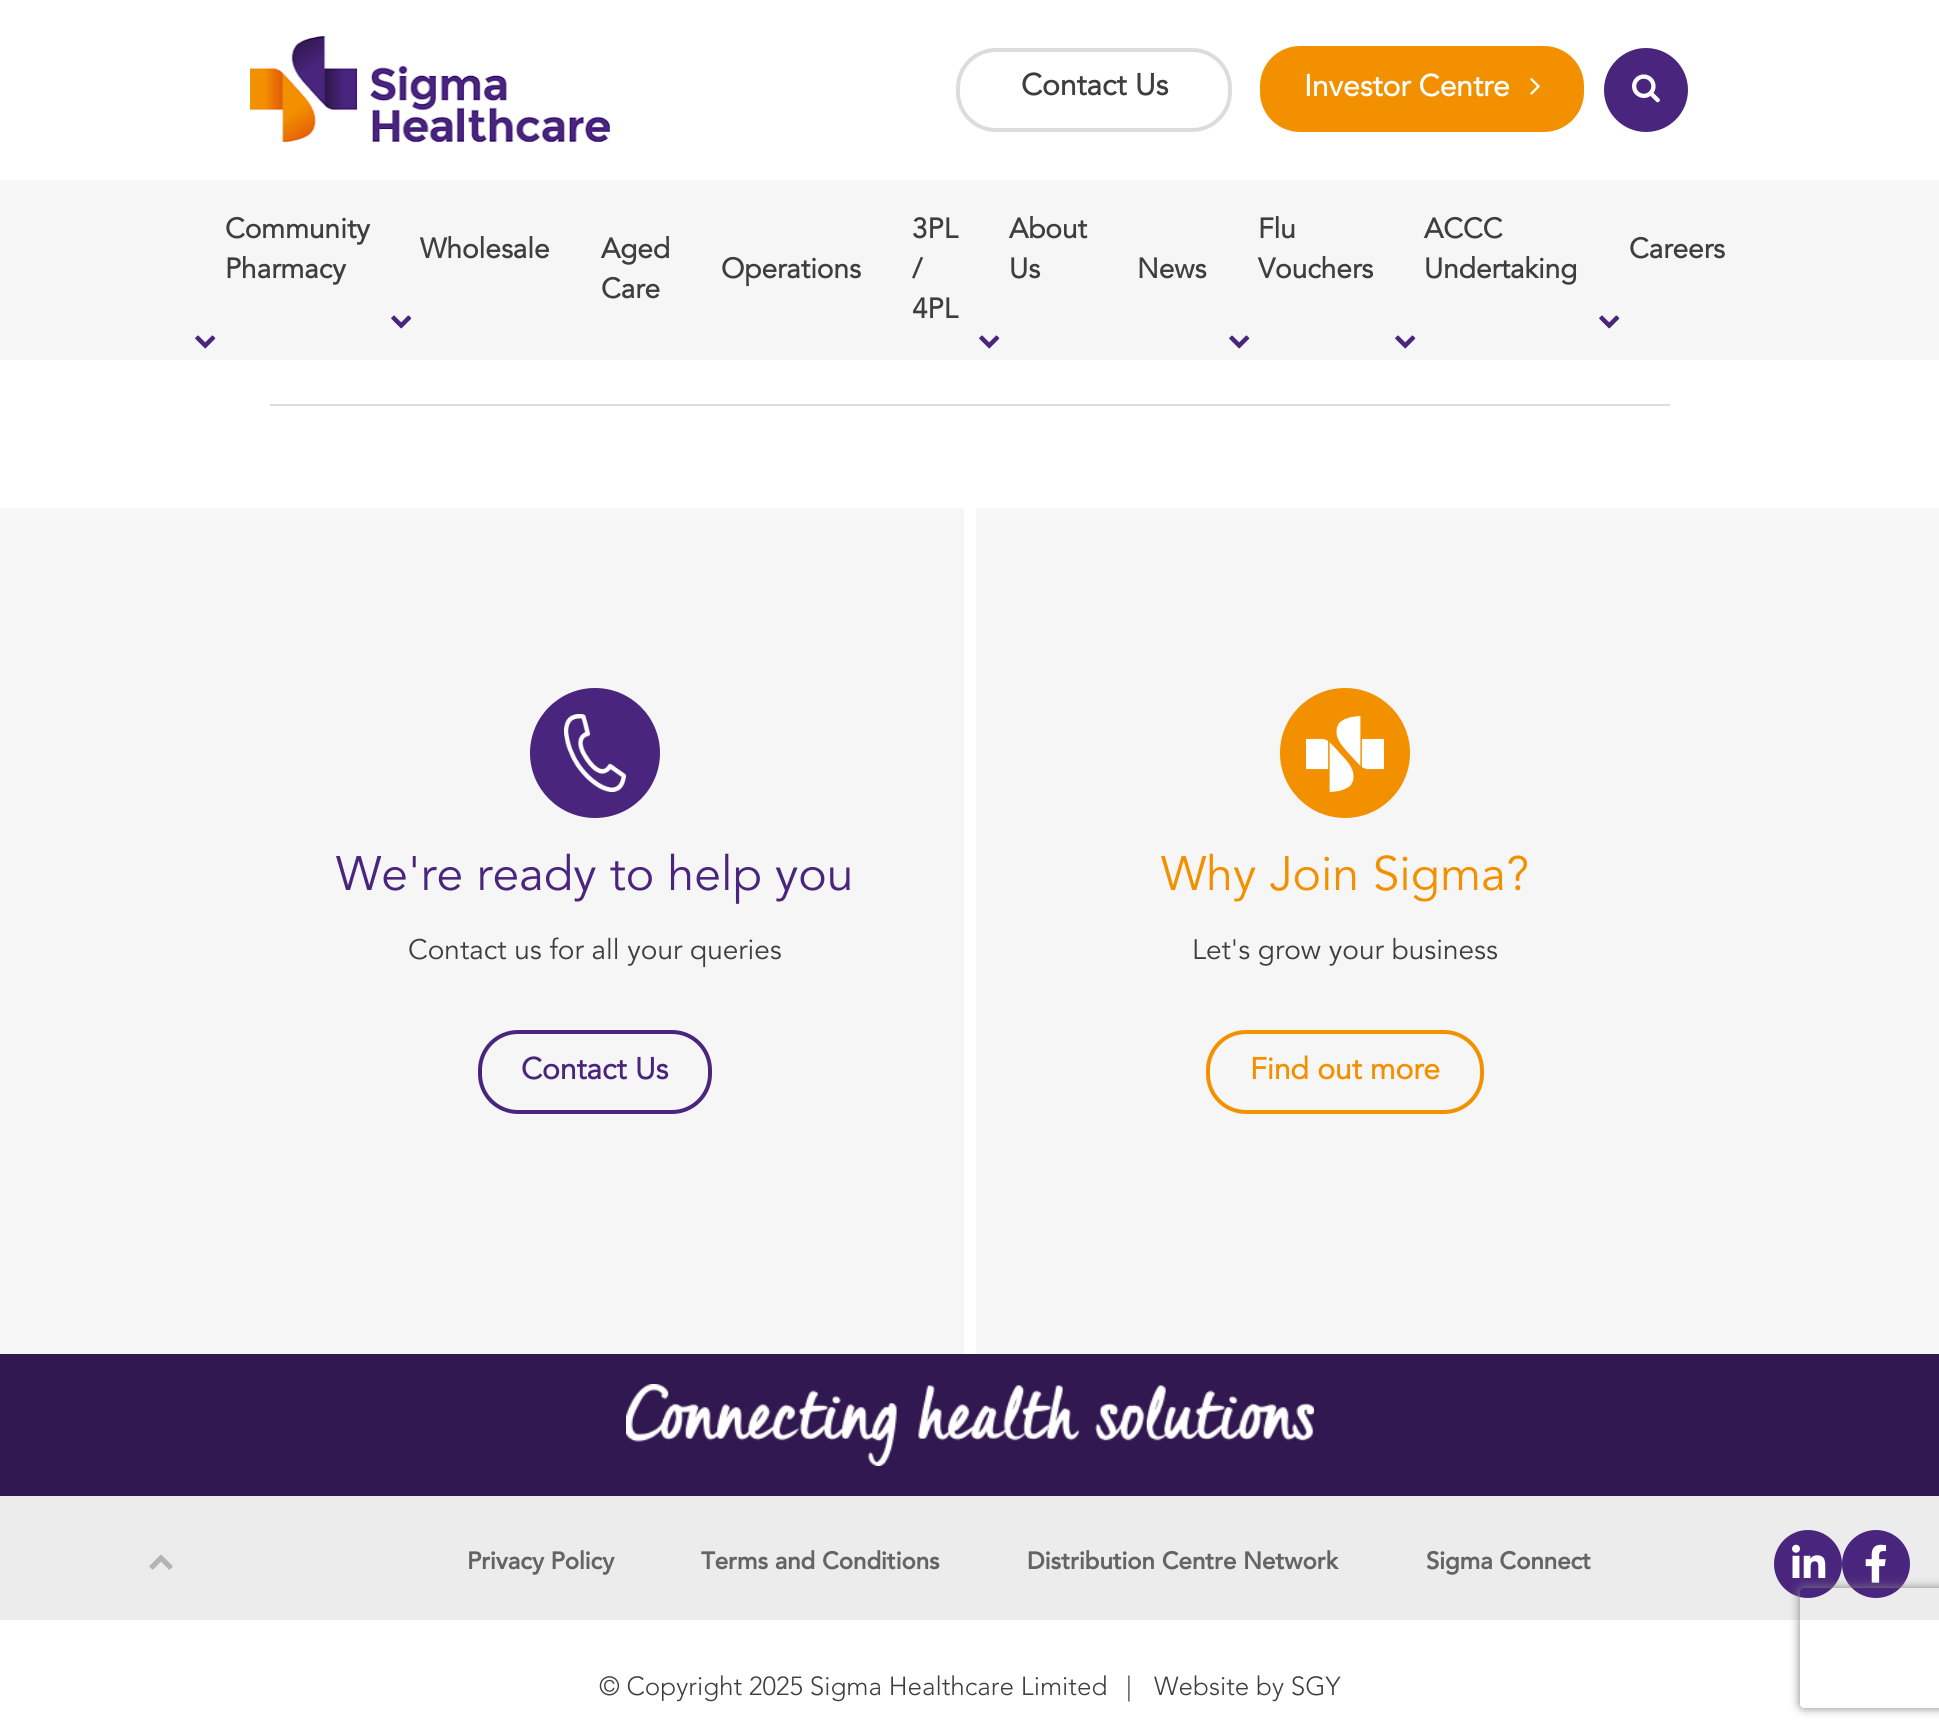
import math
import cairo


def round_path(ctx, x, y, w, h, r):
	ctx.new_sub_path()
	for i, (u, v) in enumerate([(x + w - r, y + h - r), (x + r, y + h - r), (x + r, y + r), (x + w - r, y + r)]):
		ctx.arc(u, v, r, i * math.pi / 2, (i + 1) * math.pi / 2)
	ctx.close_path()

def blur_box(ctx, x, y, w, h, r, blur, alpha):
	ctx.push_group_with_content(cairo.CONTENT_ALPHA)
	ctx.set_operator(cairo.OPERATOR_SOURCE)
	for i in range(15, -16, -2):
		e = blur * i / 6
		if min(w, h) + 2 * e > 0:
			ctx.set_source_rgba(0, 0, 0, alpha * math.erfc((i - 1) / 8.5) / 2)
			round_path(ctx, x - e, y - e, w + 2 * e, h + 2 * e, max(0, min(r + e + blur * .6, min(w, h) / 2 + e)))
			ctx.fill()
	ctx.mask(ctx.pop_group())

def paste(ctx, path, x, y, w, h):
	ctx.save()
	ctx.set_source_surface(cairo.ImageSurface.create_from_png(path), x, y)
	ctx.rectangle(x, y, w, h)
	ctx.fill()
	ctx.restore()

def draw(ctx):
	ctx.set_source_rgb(1, 1, 1)
	ctx.paint()
	paste(ctx, 'media/1.png', 250, 36, 360, 106)
	round_path(ctx, 958, 50, 272, 80, 38)
	ctx.set_source_rgb(0.863, 0.863, 0.863)
	ctx.set_line_width(4)
	ctx.stroke()
	ctx.select_font_face('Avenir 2', cairo.FONT_SLANT_NORMAL, cairo.FONT_WEIGHT_BOLD)
	ctx.set_font_size(30)
	ctx.set_source_rgb(0.243, 0.243, 0.243)
	ctx.move_to(1021, 95)
	ctx.show_text('Contact Us')
	ctx.set_source_rgb(0.953, 0.565, 0)
	round_path(ctx, 1262, 48, 320, 82, 38)
	ctx.fill_preserve()
	ctx.stroke()
	ctx.set_source_rgb(1, 1, 1)
	ctx.move_to(1304, 96)
	ctx.show_text('Investor Centre')
	paste(ctx, 'media/2.png', 1530, 78, 10, 17)
	ctx.set_source_rgb(0.29, 0.145, 0.49)
	ctx.arc(1646, 90, 40, 0, 2 * math.pi)
	ctx.fill_preserve()
	ctx.stroke()
	paste(ctx, 'media/3.png', 1632, 74, 28, 29)
	ctx.set_source_rgb(0.961, 0.961, 0.961)
	ctx.rectangle(0, 180, 1939, 180)
	ctx.fill()
	ctx.set_font_size(28)
	ctx.set_source_rgb(0.243, 0.243, 0.243)
	ctx.move_to(225, 238)
	ctx.show_text('Community')
	ctx.move_to(225, 278)
	ctx.show_text('Pharmacy')
	paste(ctx, 'media/4.png', 195, 335, 21, 14)
	ctx.move_to(420, 258)
	ctx.show_text('Wholesale')
	paste(ctx, 'media/4.png', 391, 315, 21, 14)
	for x, y, s in [
		(601, 258, 'Aged'),
		(601, 298, 'Care'),
		(912, 238, '3PL'),
		(912, 278, '/'),
		(912, 318, '4PL'),
		(1009, 238, 'About'),
		(1009, 278, 'Us'),
	]:
		ctx.move_to(x, y)
		ctx.show_text(s)
	paste(ctx, 'media/4.png', 979, 335, 21, 14)
	ctx.move_to(1258, 238)
	ctx.show_text('Flu')
	ctx.move_to(1258, 278)
	ctx.show_text('Vouchers')
	paste(ctx, 'media/4.png', 1229, 335, 21, 14)
	ctx.move_to(1424, 238)
	ctx.show_text('ACCC')
	ctx.move_to(1424, 278)
	ctx.show_text('Undertaking')
	paste(ctx, 'media/4.png', 1395, 335, 21, 14)
	ctx.move_to(1629, 258)
	ctx.show_text('Careers')
	paste(ctx, 'media/4.png', 1599, 315, 21, 14)
	ctx.move_to(721, 278)
	ctx.show_text('Operations')
	ctx.move_to(1137, 278)
	ctx.show_text('News')
	ctx.set_source_rgb(0.863, 0.863, 0.863)
	ctx.rectangle(270, 404, 1400, 2)
	ctx.fill()
	ctx.set_source_rgb(0.961, 0.961, 0.961)
	ctx.rectangle(0, 508, 1939, 846)
	ctx.fill()
	ctx.set_source_rgb(1, 1, 1)
	ctx.rectangle(964, 508, 12, 846)
	ctx.fill()
	ctx.set_source_rgb(0.29, 0.145, 0.49)
	ctx.arc(595, 753, 65, 0, 2 * math.pi)
	ctx.fill()
	paste(ctx, 'media/5.png', 564, 714, 62, 78)
	ctx.select_font_face('Avenir')
	ctx.set_font_size(48)
	ctx.move_to(336, 890)
	ctx.show_text('We\'re ready to help you')
	ctx.set_font_size(28)
	ctx.set_source_rgb(0.243, 0.243, 0.243)
	ctx.move_to(408, 959)
	ctx.show_text('Contact us for all your queries')
	round_path(ctx, 480, 1032, 230, 80, 38)
	ctx.set_source_rgb(0.29, 0.145, 0.49)
	ctx.stroke()
	ctx.select_font_face('Avenir 2', cairo.FONT_SLANT_NORMAL, cairo.FONT_WEIGHT_BOLD)
	ctx.set_font_size(30)
	ctx.move_to(521, 1079)
	ctx.show_text('Contact Us')
	ctx.set_source_rgb(0.953, 0.565, 0)
	ctx.new_path()
	ctx.arc(1345, 753, 65, 0, 2 * math.pi)
	ctx.fill()
	paste(ctx, 'media/6.png', 1306, 716, 78, 76)
	ctx.select_font_face('Avenir')
	ctx.set_font_size(48)
	ctx.move_to(1161, 890)
	ctx.show_text('Why Join Sigma?')
	ctx.set_font_size(28)
	ctx.set_source_rgb(0.243, 0.243, 0.243)
	ctx.move_to(1192, 959)
	ctx.show_text('Let\'s grow your business')
	round_path(ctx, 1208, 1032, 274, 80, 38)
	ctx.set_source_rgb(0.953, 0.565, 0)
	ctx.stroke()
	ctx.select_font_face('Avenir 2', cairo.FONT_SLANT_NORMAL, cairo.FONT_WEIGHT_BOLD)
	ctx.set_font_size(30)
	ctx.move_to(1250, 1079)
	ctx.show_text('Find out more')
	ctx.set_source_rgb(0.196, 0.094, 0.314)
	ctx.rectangle(0, 1354, 1939, 142)
	ctx.fill()
	paste(ctx, 'media/7.png', 626, 1384, 688, 82)
	ctx.set_source_rgb(0.922, 0.922, 0.922)
	ctx.rectangle(0, 1496, 1939, 124)
	ctx.fill()
	paste(ctx, 'media/8.png', 149, 1554, 24, 16)
	ctx.select_font_face('Avenir', cairo.FONT_SLANT_NORMAL, cairo.FONT_WEIGHT_BOLD)
	ctx.set_font_size(24)
	ctx.set_source_rgb(0.392, 0.392, 0.392)
	for x, y, s in [
		(467, 1569, 'Privacy Policy'),
		(701, 1569, 'Terms and Conditions'),
		(1027, 1569, 'Distribution Centre Network'),
		(1426, 1569, 'Sigma Connect'),
	]:
		ctx.move_to(x, y)
		ctx.show_text(s)
	ctx.set_source_rgb(0.29, 0.145, 0.49)
	ctx.new_path()
	ctx.arc(1808, 1564, 34, 0, 2 * math.pi)
	ctx.fill()
	paste(ctx, 'media/9.png', 1792, 1544, 34, 34)
	ctx.arc(1876, 1564, 34, 0, 2 * math.pi)
	ctx.fill()
	paste(ctx, 'media/10.png', 1865, 1544, 22, 39)
	ctx.select_font_face('Avenir Light')
	ctx.set_font_size(26)
	ctx.set_source_rgb(0.243, 0.243, 0.243)
	for x, y, s in [
		(599, 1695, '© Copyright 2025 Sigma Healthcare Limited'),
		(1126, 1695, '|'),
		(1154, 1695, 'Website by SGY'),
	]:
		ctx.move_to(x, y)
		ctx.show_text(s)
	ctx.save()
	ctx.set_fill_rule(cairo.FILL_RULE_EVEN_ODD)
	ctx.new_path()
	ctx.move_to(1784, 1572)
	ctx.line_to(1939, 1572)
	ctx.line_to(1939, 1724)
	ctx.line_to(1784, 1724)
	ctx.close_path()
	ctx.move_to(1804, 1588)
	ctx.line_to(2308, 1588)
	ctx.curve_to(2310, 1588, 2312, 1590, 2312, 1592)
	ctx.line_to(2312, 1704)
	ctx.curve_to(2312, 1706, 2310, 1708, 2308, 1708)
	ctx.line_to(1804, 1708)
	ctx.curve_to(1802, 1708, 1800, 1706, 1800, 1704)
	ctx.line_to(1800, 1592)
	ctx.curve_to(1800, 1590, 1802, 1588, 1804, 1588)
	ctx.close_path()
	ctx.clip()
	ctx.set_source_rgb(0.502, 0.502, 0.502)
	blur_box(ctx, 1800, 1588, 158, 120, 4, 5, 1)
	ctx.restore()


surface = cairo.ImageSurface(cairo.FORMAT_RGB24, 1939, 1735)
ctx = cairo.Context(surface)
options = cairo.FontOptions()
options.set_hint_metrics(cairo.HINT_METRICS_OFF)
options.set_hint_style(cairo.HINT_STYLE_NONE)
ctx.set_font_options(options)
ctx.set_miter_limit(4)
draw(ctx)
surface.write_to_png('image.png')
